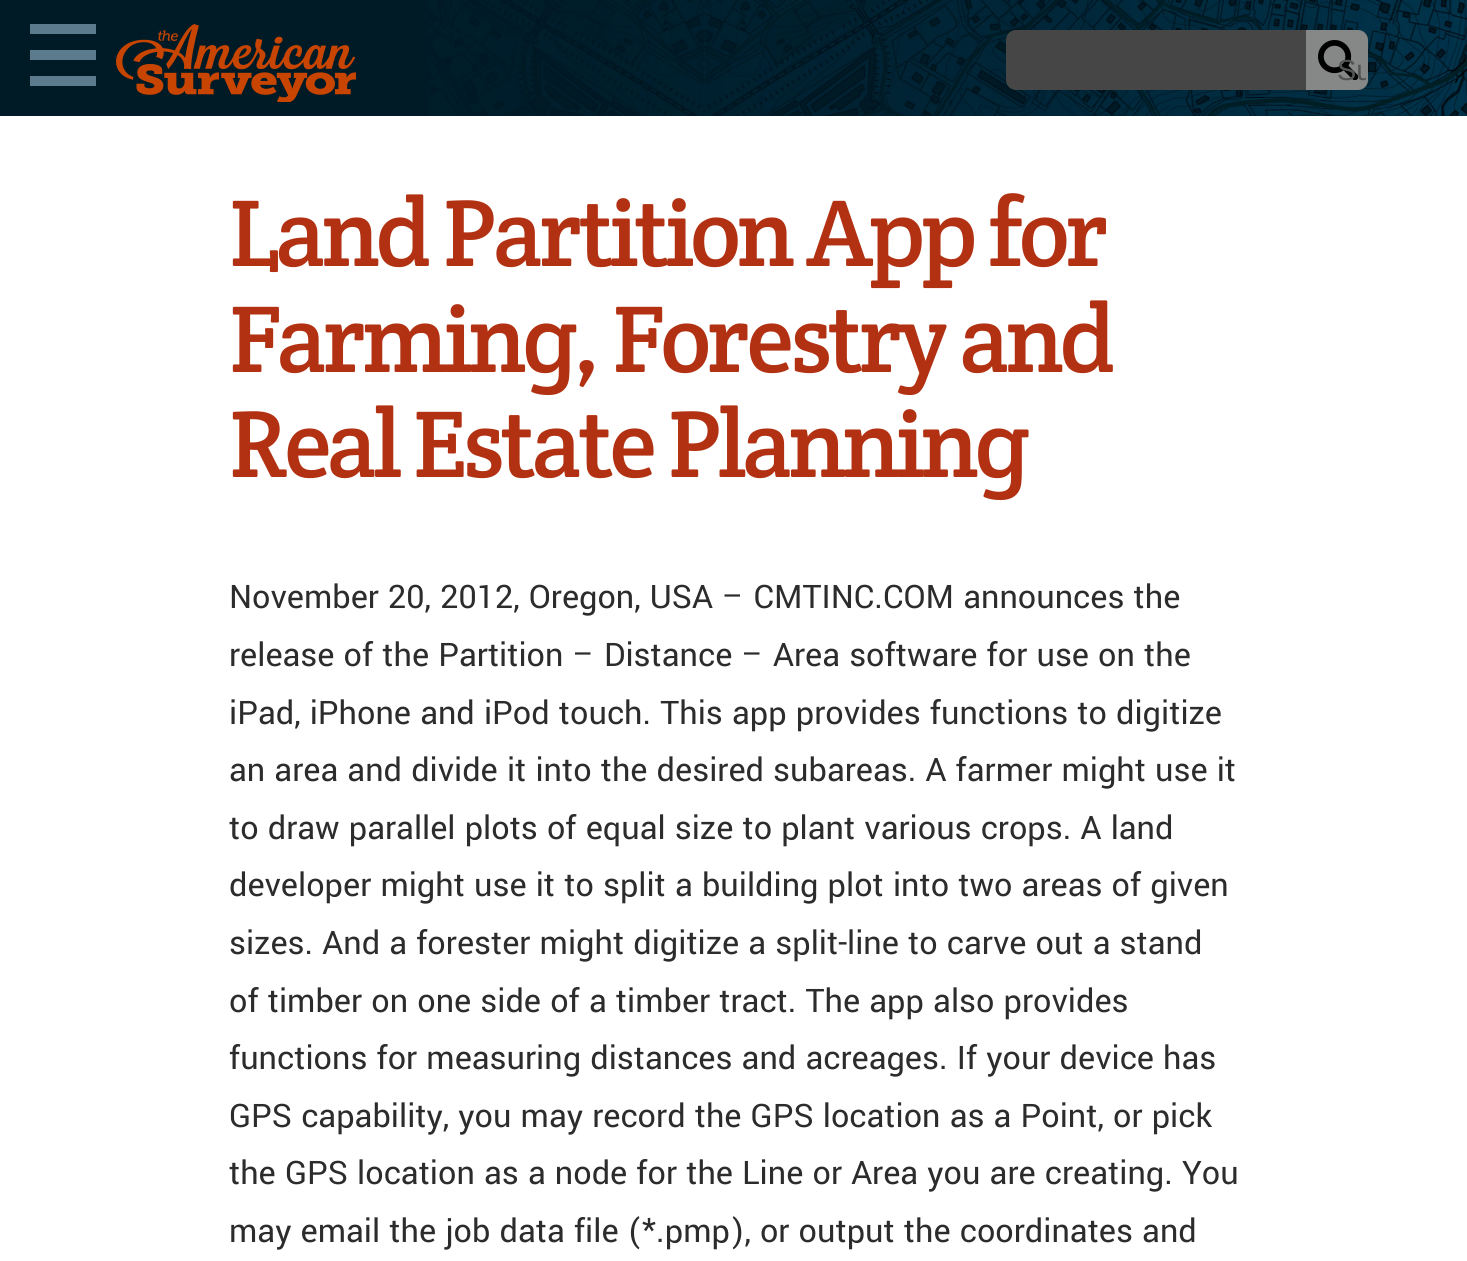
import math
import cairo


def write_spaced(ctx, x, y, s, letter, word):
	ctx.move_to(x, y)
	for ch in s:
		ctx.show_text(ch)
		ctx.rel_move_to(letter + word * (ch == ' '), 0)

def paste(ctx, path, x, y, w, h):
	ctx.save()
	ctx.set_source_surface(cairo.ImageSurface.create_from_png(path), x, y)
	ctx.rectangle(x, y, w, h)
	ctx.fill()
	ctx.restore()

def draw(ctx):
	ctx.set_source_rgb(1, 1, 1)
	ctx.paint()
	ctx.set_source_rgb(0, 0.102, 0.149)
	ctx.rectangle(0, 0, 1467, 116)
	ctx.fill()
	paste(ctx, 'media/1.png', 426, 0, 1041, 116)
	ctx.set_source_rgb(0.361, 0.486, 0.553)
	ctx.rectangle(30, 24, 66, 10)
	ctx.rectangle(30, 50, 66, 10)
	ctx.rectangle(30, 76, 66, 10)
	ctx.fill()
	paste(ctx, 'media/2.png', 116, 24, 240, 78)
	ctx.set_source_rgb(0.275, 0.275, 0.275)
	ctx.new_path()
	ctx.move_to(1016, 30)
	ctx.line_to(1306, 30)
	ctx.line_to(1306, 90)
	ctx.line_to(1016, 90)
	ctx.curve_to(1010.5, 90, 1006, 85.5, 1006, 80)
	ctx.line_to(1006, 40)
	ctx.curve_to(1006, 34.5, 1010.5, 30, 1016, 30)
	ctx.close_path()
	ctx.fill()
	ctx.set_source_rgb(0.525, 0.533, 0.533)
	ctx.new_path()
	ctx.move_to(1306, 30)
	ctx.line_to(1358, 30)
	ctx.curve_to(1363.5, 30, 1368, 34.5, 1368, 40)
	ctx.line_to(1368, 80)
	ctx.curve_to(1368, 85.5, 1363.5, 90, 1358, 90)
	ctx.line_to(1306, 90)
	ctx.close_path()
	ctx.fill()
	paste(ctx, 'media/3.png', 1318, 40, 40, 40)
	ctx.save()
	ctx.new_path()
	ctx.move_to(1308, 32)
	ctx.line_to(1358, 32)
	ctx.curve_to(1362.5, 32, 1366, 35.5, 1366, 40)
	ctx.line_to(1366, 80)
	ctx.curve_to(1366, 84.5, 1362.5, 88, 1358, 88)
	ctx.line_to(1308, 88)
	ctx.close_path()
	ctx.clip()
	ctx.select_font_face('Liberation Sans')
	ctx.set_font_size(29)
	ctx.set_source_rgb(0.322, 0.325, 0.325)
	ctx.move_to(1337, 80)
	ctx.show_text('Su')
	ctx.restore()
	ctx.select_font_face('Crete Round')
	ctx.set_font_size(96)
	ctx.set_source_rgb(0.698, 0.192, 0.071)
	for x, y, s in [
		(229, 266, 'Land Partition App for'),
		(229, 372, 'Farming, Forestry and'),
		(229, 477, 'Real Estate Planning'),
	]:
		write_spaced(ctx, x, y, s, -4, 0)
	ctx.select_font_face('Yantramanav')
	ctx.set_font_size(36)
	ctx.set_source_rgb(0.173, 0.173, 0.173)
	for x, y, s in [
		(229, 608, 'November 20, 2012, Oregon, USA – CMTINC.COM announces the'),
		(229, 666, 'release of the Partition – Distance – Area software for use on the'),
		(229, 724, 'iPad, iPhone and iPod touch. This app provides functions to digitize'),
		(229, 781, 'an area and divide it into the desired subareas. A farmer might use it'),
		(229, 839, 'to draw parallel plots of equal size to plant various crops. A land'),
		(229, 896, 'developer might use it to split a building plot into two areas of given'),
		(229, 954, 'sizes. And a forester might digitize a split-line to carve out a stand'),
		(229, 1012, 'of timber on one side of a timber tract. The app also provides'),
		(229, 1069, 'functions for measuring distances and acreages. If your device has'),
		(229, 1127, 'GPS capability, you may record the GPS location as a Point, or pick'),
		(229, 1184, 'the GPS location as a node for the Line or Area you are creating. You'),
		(229, 1242, 'may email the job data file (*.pmp), or output the coordinates and'),
	]:
		ctx.move_to(x, y)
		ctx.show_text(s)


surface = cairo.ImageSurface(cairo.FORMAT_RGB24, 1467, 1261)
ctx = cairo.Context(surface)
options = cairo.FontOptions()
options.set_hint_metrics(cairo.HINT_METRICS_OFF)
options.set_hint_style(cairo.HINT_STYLE_NONE)
ctx.set_font_options(options)
ctx.set_miter_limit(4)
draw(ctx)
surface.write_to_png('image.png')
